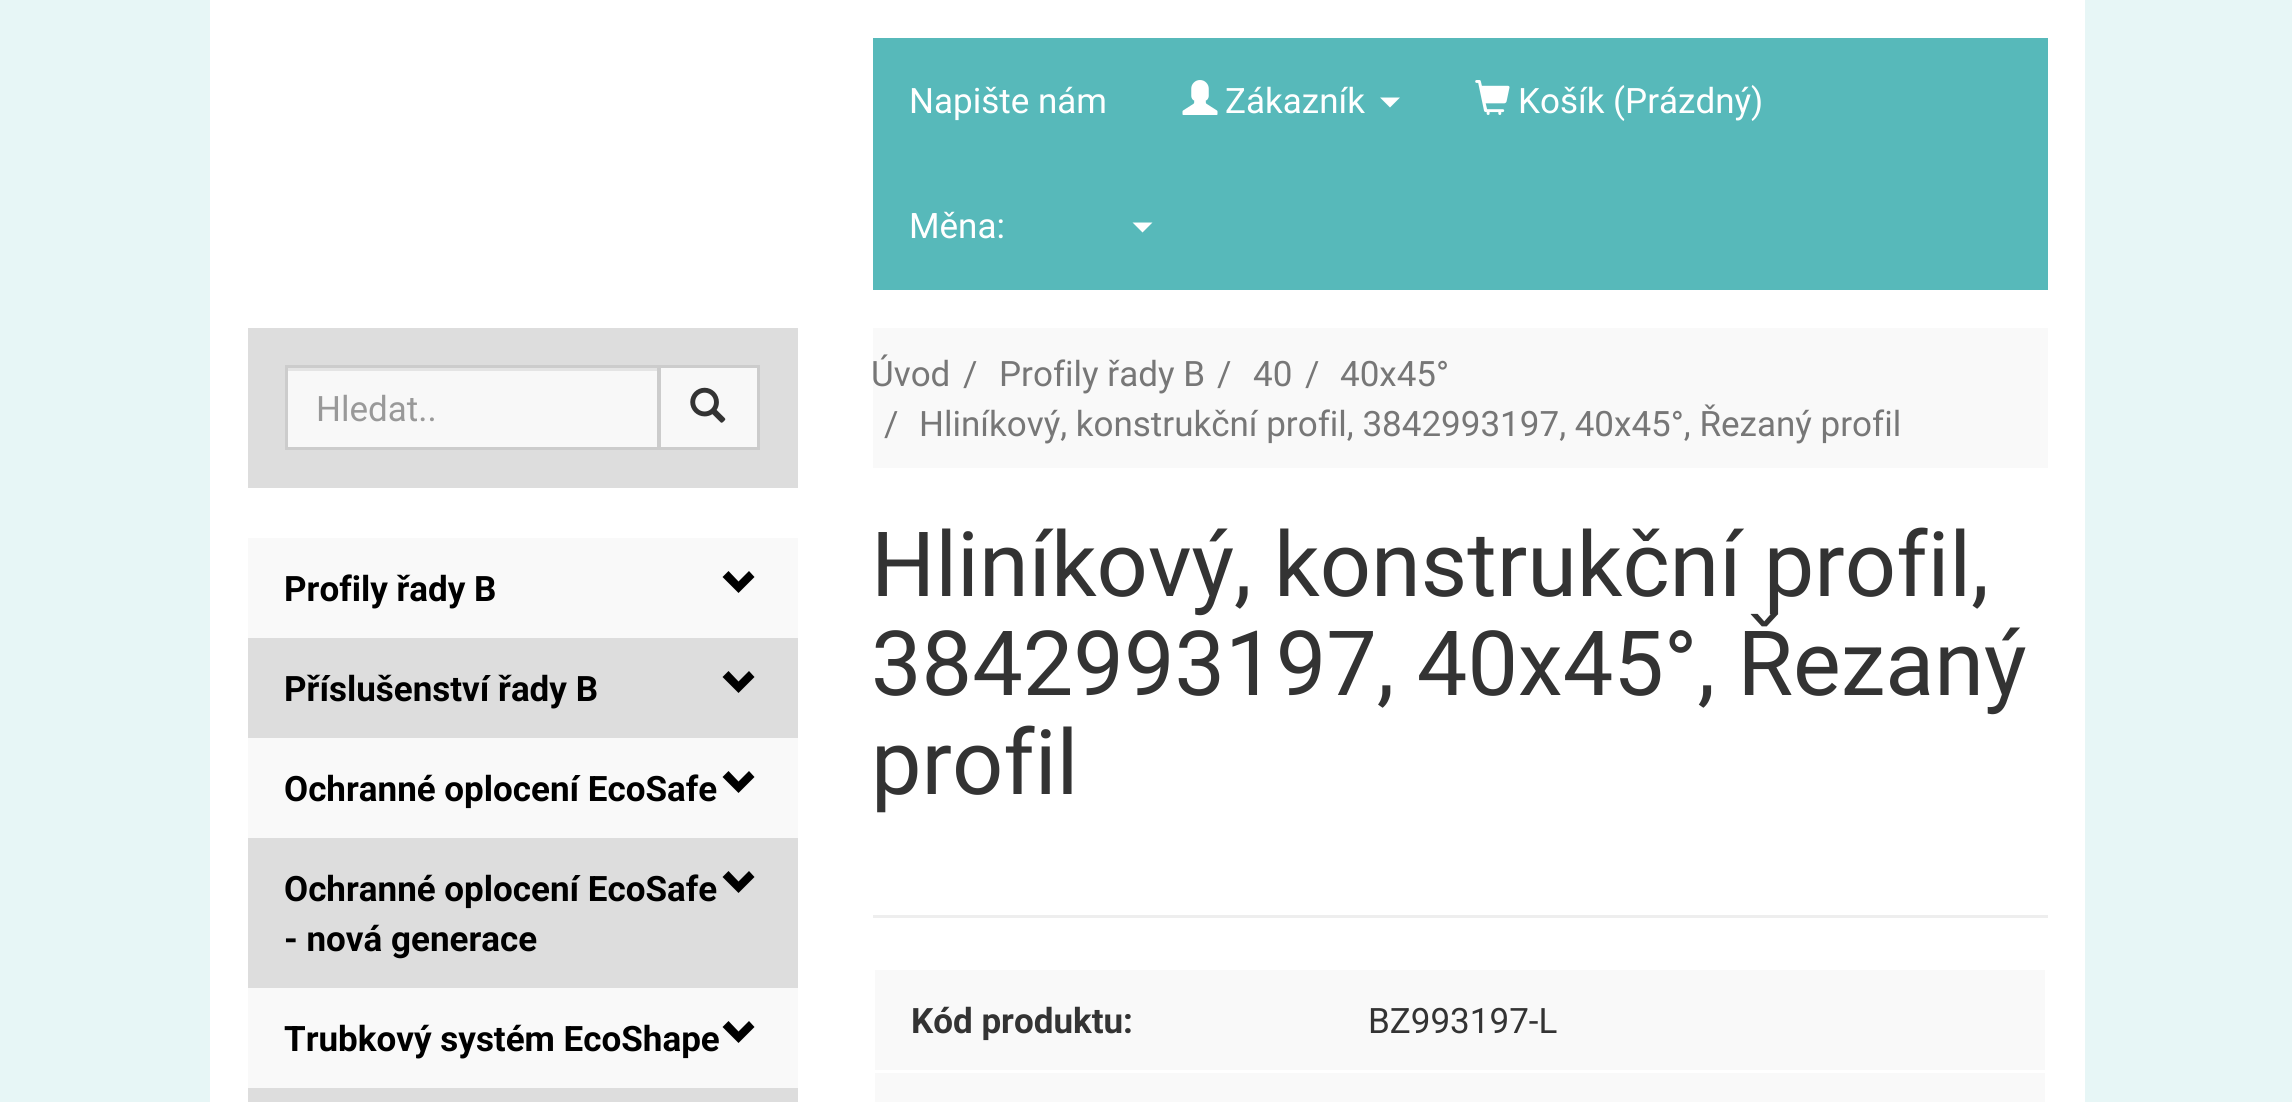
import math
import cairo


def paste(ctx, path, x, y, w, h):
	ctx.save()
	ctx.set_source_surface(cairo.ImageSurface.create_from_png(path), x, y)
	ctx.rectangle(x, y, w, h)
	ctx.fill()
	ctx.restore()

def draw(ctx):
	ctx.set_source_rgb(0.906, 0.961, 0.961)
	ctx.paint()
	ctx.set_source_rgb(1, 1, 1)
	ctx.rectangle(210, 0, 1875, 1102)
	ctx.fill()
	ctx.set_source_rgb(0.341, 0.725, 0.729)
	ctx.rectangle(873, 38, 1175, 252)
	ctx.fill()
	ctx.select_font_face('Roboto')
	ctx.set_font_size(35)
	ctx.set_source_rgb(1, 1, 1)
	ctx.move_to(909, 113)
	ctx.show_text('Napište nám')
	paste(ctx, 'media/1.png', 1182, 80, 36, 35)
	ctx.move_to(1225, 113)
	ctx.show_text('Zákazník')
	ctx.new_path()
	ctx.move_to(1380, 97.5)
	ctx.line_to(1400, 97.5)
	ctx.line_to(1390, 107.5)
	ctx.close_path()
	ctx.fill()
	paste(ctx, 'media/2.png', 1475, 80, 35, 35)
	ctx.move_to(1518, 113)
	ctx.show_text('Košík (Prázdný)')
	ctx.move_to(909, 238)
	ctx.show_text('Měna:')
	ctx.new_path()
	ctx.move_to(1132.5, 222.5)
	ctx.line_to(1152.5, 222.5)
	ctx.line_to(1142.5, 232.5)
	ctx.close_path()
	ctx.fill()
	ctx.set_source_rgb(0.867, 0.867, 0.867)
	ctx.rectangle(248, 328, 550, 160)
	ctx.fill()
	ctx.set_source_rgb(0.969, 0.969, 0.969)
	ctx.rectangle(288, 371, 369, 76)
	ctx.fill()
	ctx.set_source_rgb(0.894, 0.894, 0.894)
	ctx.rectangle(288, 368, 370, 3)
	ctx.fill()
	ctx.rectangle(286.5, 366.5, 372, 82)
	ctx.set_source_rgb(0.8, 0.8, 0.8)
	ctx.set_line_width(3)
	ctx.stroke()
	ctx.set_source_rgb(0.6, 0.6, 0.6)
	ctx.move_to(316, 421)
	ctx.show_text('Hledat..')
	ctx.set_source_rgb(0.969, 0.969, 0.969)
	ctx.rectangle(659.5, 366.5, 99, 82)
	ctx.fill_preserve()
	ctx.set_source_rgb(0.8, 0.8, 0.8)
	ctx.stroke()
	paste(ctx, 'media/3.png', 690, 387, 36, 36)
	ctx.set_source_rgb(0.976, 0.976, 0.976)
	ctx.rectangle(248, 538, 550, 100)
	ctx.fill()
	ctx.select_font_face('Roboto', cairo.FONT_SLANT_NORMAL, cairo.FONT_WEIGHT_BOLD)
	ctx.set_source_rgb(0, 0, 0)
	ctx.move_to(284, 601)
	ctx.show_text('Profily řady B')
	ctx.new_path()
	ctx.move_to(754.5, 577)
	ctx.line_to(738.5, 593)
	ctx.line_to(722.5, 577)
	ctx.line_to(728.5, 571)
	ctx.line_to(738.5, 581.5)
	ctx.line_to(749, 571)
	ctx.close_path()
	ctx.fill()
	ctx.set_source_rgb(0.867, 0.867, 0.867)
	ctx.rectangle(248, 638, 550, 100)
	ctx.fill()
	ctx.set_source_rgb(0, 0, 0)
	ctx.move_to(284, 701)
	ctx.show_text('Příslušenství řady B')
	ctx.new_path()
	ctx.move_to(754.5, 677)
	ctx.line_to(738.5, 693)
	ctx.line_to(722.5, 677)
	ctx.line_to(728.5, 671)
	ctx.line_to(738.5, 681.5)
	ctx.line_to(749, 671)
	ctx.close_path()
	ctx.fill()
	ctx.set_source_rgb(0.976, 0.976, 0.976)
	ctx.rectangle(248, 738, 550, 100)
	ctx.fill()
	ctx.set_source_rgb(0, 0, 0)
	ctx.move_to(284, 801)
	ctx.show_text('Ochranné oplocení EcoSafe')
	ctx.new_path()
	ctx.move_to(754.5, 777)
	ctx.line_to(738.5, 793)
	ctx.line_to(722.5, 777)
	ctx.line_to(728.5, 771)
	ctx.line_to(738.5, 781.5)
	ctx.line_to(749, 771)
	ctx.close_path()
	ctx.fill()
	ctx.set_source_rgb(0.867, 0.867, 0.867)
	ctx.rectangle(248, 838, 550, 150)
	ctx.fill()
	ctx.set_source_rgb(0, 0, 0)
	ctx.move_to(284, 901)
	ctx.show_text('Ochranné oplocení EcoSafe')
	ctx.new_path()
	ctx.move_to(754.5, 877)
	ctx.line_to(738.5, 893)
	ctx.line_to(722.5, 877)
	ctx.line_to(728.5, 871)
	ctx.line_to(738.5, 881.5)
	ctx.line_to(749, 871)
	ctx.close_path()
	ctx.fill()
	ctx.move_to(284, 951)
	ctx.show_text('- nová generace')
	ctx.set_source_rgb(0.976, 0.976, 0.976)
	ctx.rectangle(248, 988, 550, 100)
	ctx.fill()
	ctx.set_source_rgb(0, 0, 0)
	ctx.move_to(284, 1051)
	ctx.show_text('Trubkový systém EcoShape')
	ctx.new_path()
	ctx.move_to(754.5, 1027)
	ctx.line_to(738.5, 1043)
	ctx.line_to(722.5, 1027)
	ctx.line_to(728.5, 1021)
	ctx.line_to(738.5, 1031.5)
	ctx.line_to(749, 1021)
	ctx.close_path()
	ctx.fill()
	ctx.set_source_rgb(0.867, 0.867, 0.867)
	ctx.rectangle(248, 1088, 550, 14)
	ctx.fill()
	ctx.set_source_rgb(0.976, 0.976, 0.976)
	ctx.rectangle(873, 328, 1175, 140)
	ctx.fill()
	ctx.select_font_face('Roboto')
	ctx.set_source_rgb(0.467, 0.467, 0.467)
	for x, y, s in [
		(871, 386, 'Úvod'),
		(963, 386, '/'),
		(999, 386, 'Profily řady B'),
		(1217, 386, '/'),
		(1253, 386, '40'),
		(1305, 386, '/'),
		(1340, 386, '40x45°'),
		(884, 436, '/'),
		(919, 436, 'Hliníkový, konstrukční profil, 3842993197, 40x45°, Řezaný profil'),
	]:
		ctx.move_to(x, y)
		ctx.show_text(s)
	ctx.set_font_size(90)
	ctx.set_source_rgb(0.2, 0.2, 0.2)
	for x, y, s in [
		(871, 596, 'Hliníkový, konstrukční profil,'),
		(871, 695, '3842993197, 40x45°, Řezaný'),
		(871, 794, 'profil'),
	]:
		ctx.move_to(x, y)
		ctx.show_text(s)
	ctx.set_source_rgb(0.933, 0.933, 0.933)
	ctx.rectangle(873, 915, 1175, 3)
	ctx.fill()
	ctx.set_source_rgb(0.976, 0.976, 0.976)
	ctx.rectangle(875, 970, 1170, 100)
	ctx.fill()
	ctx.select_font_face('Roboto', cairo.FONT_SLANT_NORMAL, cairo.FONT_WEIGHT_BOLD)
	ctx.set_font_size(35)
	ctx.set_source_rgb(0.2, 0.2, 0.2)
	ctx.move_to(911, 1033)
	ctx.show_text('Kód produktu:')
	ctx.select_font_face('Roboto')
	ctx.move_to(1368, 1033)
	ctx.show_text('BZ993197-L')
	ctx.set_source_rgb(0.976, 0.976, 0.976)
	ctx.rectangle(875, 1073, 1170, 29)
	ctx.fill()


surface = cairo.ImageSurface(cairo.FORMAT_RGB24, 2292, 1102)
ctx = cairo.Context(surface)
options = cairo.FontOptions()
options.set_hint_metrics(cairo.HINT_METRICS_OFF)
options.set_hint_style(cairo.HINT_STYLE_NONE)
ctx.set_font_options(options)
ctx.set_miter_limit(4)
draw(ctx)
surface.write_to_png('image.png')
